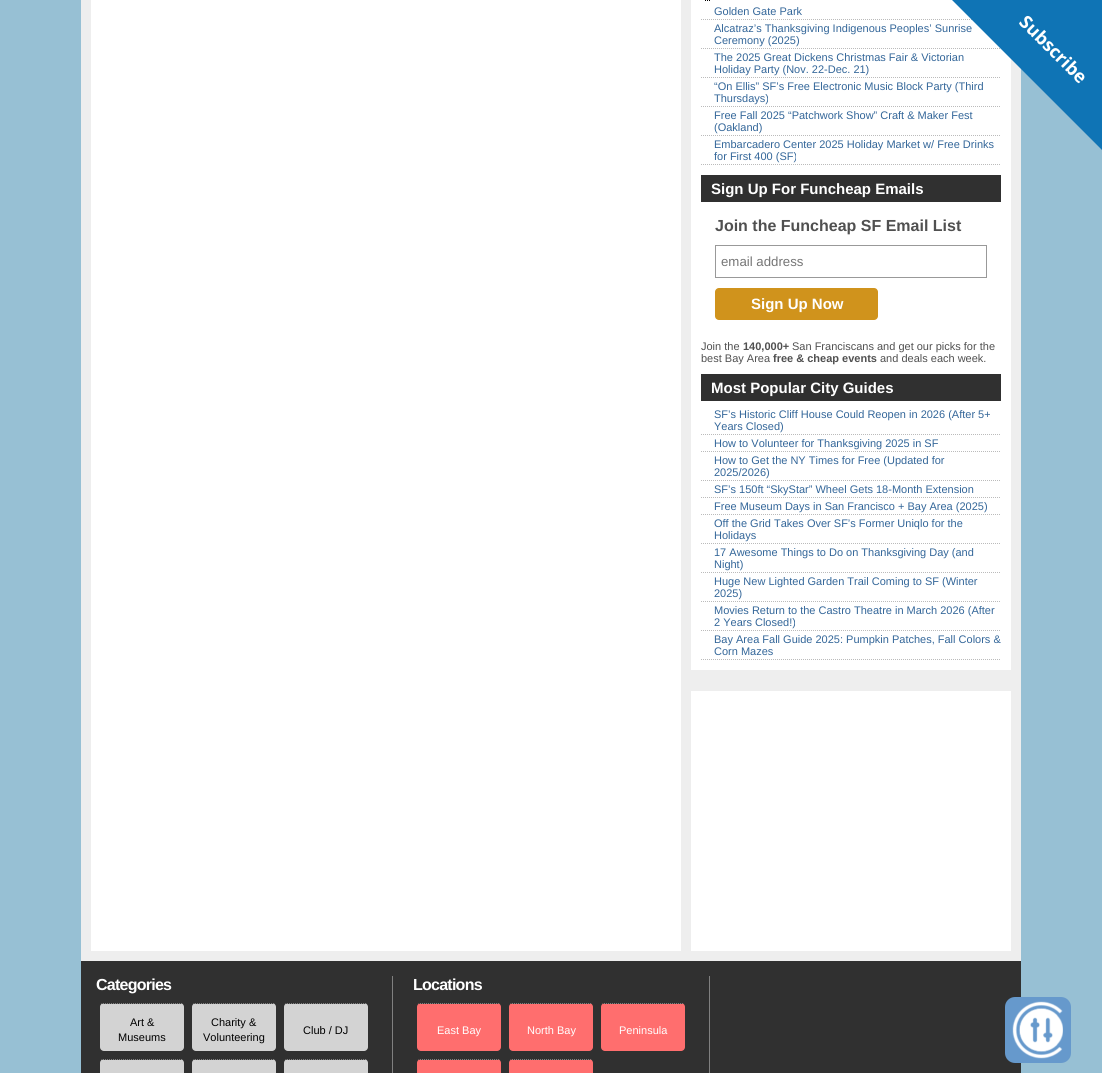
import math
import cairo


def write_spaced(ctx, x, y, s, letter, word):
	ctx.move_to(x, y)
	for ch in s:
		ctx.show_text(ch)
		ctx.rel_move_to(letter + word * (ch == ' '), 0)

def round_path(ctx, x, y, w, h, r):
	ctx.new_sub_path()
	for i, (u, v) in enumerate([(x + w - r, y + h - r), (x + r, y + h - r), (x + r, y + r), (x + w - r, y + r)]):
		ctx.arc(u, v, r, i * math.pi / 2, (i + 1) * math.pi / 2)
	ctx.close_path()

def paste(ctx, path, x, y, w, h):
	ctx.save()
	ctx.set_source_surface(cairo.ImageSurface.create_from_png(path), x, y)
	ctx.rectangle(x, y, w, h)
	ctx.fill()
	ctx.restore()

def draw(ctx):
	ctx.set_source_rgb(0.592, 0.753, 0.831)
	ctx.paint()
	ctx.set_source_rgb(0.933, 0.933, 0.933)
	ctx.rectangle(81, 0, 940, 961)
	ctx.fill()
	ctx.set_source_rgb(1, 1, 1)
	ctx.rectangle(91, 0, 590, 951)
	ctx.rectangle(691, 0, 320, 670)
	ctx.fill()
	paste(ctx, 'media/1.png', 705, 0, 5, 1)
	ctx.new_path()
	ctx.move_to(701, 19.5)
	ctx.line_to(1001, 19.5)
	ctx.set_source_rgb(0.733, 0.733, 0.733)
	ctx.set_line_width(1)
	ctx.set_dash([1, 1])
	ctx.stroke()
	ctx.select_font_face('Liberation Sans')
	ctx.set_font_size(11)
	ctx.set_source_rgb(0.2, 0.4, 0.6)
	ctx.move_to(714, 15)
	ctx.show_text('Golden Gate Park')
	ctx.new_path()
	ctx.move_to(701, 48.5)
	ctx.line_to(1001, 48.5)
	ctx.set_source_rgb(0.733, 0.733, 0.733)
	ctx.stroke()
	ctx.set_source_rgb(0.2, 0.4, 0.6)
	ctx.move_to(714, 32)
	ctx.show_text('Alcatraz’s Thanksgiving Indigenous Peoples’ Sunrise')
	ctx.move_to(714, 44)
	ctx.show_text('Ceremony (2025)')
	ctx.new_path()
	ctx.move_to(701, 77.5)
	ctx.line_to(1001, 77.5)
	ctx.set_source_rgb(0.733, 0.733, 0.733)
	ctx.stroke()
	ctx.set_source_rgb(0.2, 0.4, 0.6)
	ctx.move_to(714, 61)
	ctx.show_text('The 2025 Great Dickens Christmas Fair & Victorian')
	ctx.move_to(714, 73)
	ctx.show_text('Holiday Party (Nov. 22-Dec. 21)')
	ctx.new_path()
	ctx.move_to(701, 106.5)
	ctx.line_to(1001, 106.5)
	ctx.set_source_rgb(0.733, 0.733, 0.733)
	ctx.stroke()
	ctx.set_source_rgb(0.2, 0.4, 0.6)
	ctx.move_to(714, 90)
	ctx.show_text('“On Ellis” SF’s Free Electronic Music Block Party (Third')
	ctx.move_to(714, 102)
	ctx.show_text('Thursdays)')
	ctx.new_path()
	ctx.move_to(701, 135.5)
	ctx.line_to(1001, 135.5)
	ctx.set_source_rgb(0.733, 0.733, 0.733)
	ctx.stroke()
	ctx.set_source_rgb(0.2, 0.4, 0.6)
	ctx.move_to(714, 119)
	ctx.show_text('Free Fall 2025 “Patchwork Show” Craft & Maker Fest')
	ctx.move_to(714, 131)
	ctx.show_text('(Oakland)')
	ctx.new_path()
	ctx.move_to(701, 164.5)
	ctx.line_to(1001, 164.5)
	ctx.set_source_rgb(0.733, 0.733, 0.733)
	ctx.stroke()
	ctx.set_source_rgb(0.2, 0.4, 0.6)
	ctx.move_to(714, 148)
	ctx.show_text('Embarcadero Center 2025 Holiday Market w/ Free Drinks')
	ctx.move_to(714, 160)
	ctx.show_text('for First 400 (SF)')
	ctx.set_source_rgb(0.188, 0.188, 0.188)
	ctx.rectangle(701, 175, 300, 27)
	ctx.fill()
	ctx.select_font_face('Liberation Sans', cairo.FONT_SLANT_NORMAL, cairo.FONT_WEIGHT_BOLD)
	ctx.set_font_size(15)
	ctx.set_source_rgb(1, 1, 1)
	ctx.move_to(711, 194)
	ctx.show_text('Sign Up For Funcheap Emails')
	ctx.set_font_size(16)
	ctx.set_source_rgb(0.314, 0.314, 0.314)
	ctx.move_to(715, 231)
	ctx.show_text('Join the Funcheap SF Email List')
	ctx.rectangle(715.5, 245.5, 271, 32)
	ctx.set_source_rgb(0.6, 0.6, 0.6)
	ctx.set_dash([])
	ctx.stroke()
	ctx.select_font_face('Liberation Sans')
	ctx.set_font_size(13.25)
	ctx.set_source_rgb(0.459, 0.459, 0.459)
	ctx.move_to(721, 266)
	ctx.show_text('email address')
	ctx.set_source_rgb(0.816, 0.576, 0.11)
	round_path(ctx, 715, 288, 163, 32, 4)
	ctx.fill()
	ctx.select_font_face('Liberation Sans', cairo.FONT_SLANT_NORMAL, cairo.FONT_WEIGHT_BOLD)
	ctx.set_font_size(15)
	ctx.set_source_rgb(1, 1, 1)
	ctx.move_to(751, 309)
	ctx.show_text('Sign Up Now')
	ctx.select_font_face('Liberation Sans')
	ctx.set_font_size(11)
	ctx.set_source_rgb(0.314, 0.314, 0.314)
	ctx.move_to(701, 350)
	ctx.show_text('Join the')
	ctx.select_font_face('Liberation Sans', cairo.FONT_SLANT_NORMAL, cairo.FONT_WEIGHT_BOLD)
	ctx.move_to(743, 350)
	ctx.show_text('140,000+')
	ctx.select_font_face('Liberation Sans')
	ctx.move_to(792, 350)
	ctx.show_text('San Franciscans and get our picks for the')
	ctx.move_to(701, 362)
	ctx.show_text('best Bay Area')
	ctx.select_font_face('Liberation Sans', cairo.FONT_SLANT_NORMAL, cairo.FONT_WEIGHT_BOLD)
	ctx.move_to(773, 362)
	ctx.show_text('free & cheap events')
	ctx.select_font_face('Liberation Sans')
	ctx.move_to(880, 362)
	ctx.show_text('and deals each week.')
	ctx.set_source_rgb(0.188, 0.188, 0.188)
	ctx.rectangle(701, 374, 300, 27)
	ctx.fill()
	ctx.select_font_face('Liberation Sans', cairo.FONT_SLANT_NORMAL, cairo.FONT_WEIGHT_BOLD)
	ctx.set_font_size(15)
	ctx.set_source_rgb(1, 1, 1)
	ctx.move_to(711, 393)
	ctx.show_text('Most Popular City Guides')
	ctx.new_path()
	ctx.move_to(701, 434.5)
	ctx.line_to(1001, 434.5)
	ctx.set_source_rgb(0.733, 0.733, 0.733)
	ctx.set_dash([1, 1])
	ctx.stroke()
	ctx.select_font_face('Liberation Sans')
	ctx.set_font_size(11)
	ctx.set_source_rgb(0.2, 0.4, 0.6)
	ctx.move_to(714, 418)
	ctx.show_text('SF’s Historic Cliff House Could Reopen in 2026 (After 5+')
	ctx.move_to(714, 430)
	ctx.show_text('Years Closed)')
	ctx.new_path()
	ctx.move_to(701, 451.5)
	ctx.line_to(1001, 451.5)
	ctx.set_source_rgb(0.733, 0.733, 0.733)
	ctx.stroke()
	ctx.set_source_rgb(0.2, 0.4, 0.6)
	ctx.move_to(714, 447)
	ctx.show_text('How to Volunteer for Thanksgiving 2025 in SF')
	ctx.new_path()
	ctx.move_to(701, 480.5)
	ctx.line_to(1001, 480.5)
	ctx.set_source_rgb(0.733, 0.733, 0.733)
	ctx.stroke()
	ctx.set_source_rgb(0.2, 0.4, 0.6)
	ctx.move_to(714, 464)
	ctx.show_text('How to Get the NY Times for Free (Updated for')
	ctx.move_to(714, 476)
	ctx.show_text('2025/2026)')
	ctx.new_path()
	ctx.move_to(701, 497.5)
	ctx.line_to(1001, 497.5)
	ctx.set_source_rgb(0.733, 0.733, 0.733)
	ctx.stroke()
	ctx.set_source_rgb(0.2, 0.4, 0.6)
	ctx.move_to(714, 493)
	ctx.show_text('SF’s 150ft “SkyStar” Wheel Gets 18-Month Extension')
	ctx.new_path()
	ctx.move_to(701, 514.5)
	ctx.line_to(1001, 514.5)
	ctx.set_source_rgb(0.733, 0.733, 0.733)
	ctx.stroke()
	ctx.set_source_rgb(0.2, 0.4, 0.6)
	ctx.move_to(714, 510)
	ctx.show_text('Free Museum Days in San Francisco + Bay Area (2025)')
	ctx.new_path()
	ctx.move_to(701, 543.5)
	ctx.line_to(1001, 543.5)
	ctx.set_source_rgb(0.733, 0.733, 0.733)
	ctx.stroke()
	ctx.set_source_rgb(0.2, 0.4, 0.6)
	ctx.move_to(714, 527)
	ctx.show_text('Off the Grid Takes Over SF’s Former Uniqlo for the')
	ctx.move_to(714, 539)
	ctx.show_text('Holidays')
	ctx.new_path()
	ctx.move_to(701, 572.5)
	ctx.line_to(1001, 572.5)
	ctx.set_source_rgb(0.733, 0.733, 0.733)
	ctx.stroke()
	ctx.set_source_rgb(0.2, 0.4, 0.6)
	ctx.move_to(714, 556)
	ctx.show_text('17 Awesome Things to Do on Thanksgiving Day (and')
	ctx.move_to(714, 568)
	ctx.show_text('Night)')
	ctx.new_path()
	ctx.move_to(701, 601.5)
	ctx.line_to(1001, 601.5)
	ctx.set_source_rgb(0.733, 0.733, 0.733)
	ctx.stroke()
	ctx.set_source_rgb(0.2, 0.4, 0.6)
	ctx.move_to(714, 585)
	ctx.show_text('Huge New Lighted Garden Trail Coming to SF (Winter')
	ctx.move_to(714, 597)
	ctx.show_text('2025)')
	ctx.new_path()
	ctx.move_to(701, 630.5)
	ctx.line_to(1001, 630.5)
	ctx.set_source_rgb(0.733, 0.733, 0.733)
	ctx.stroke()
	ctx.set_source_rgb(0.2, 0.4, 0.6)
	ctx.move_to(714, 614)
	ctx.show_text('Movies Return to the Castro Theatre in March 2026 (After')
	ctx.move_to(714, 626)
	ctx.show_text('2 Years Closed!)')
	ctx.new_path()
	ctx.move_to(701, 659.5)
	ctx.line_to(1001, 659.5)
	ctx.set_source_rgb(0.733, 0.733, 0.733)
	ctx.stroke()
	ctx.set_source_rgb(0.2, 0.4, 0.6)
	ctx.move_to(714, 643)
	ctx.show_text('Bay Area Fall Guide 2025: Pumpkin Patches, Fall Colors &')
	ctx.move_to(714, 655)
	ctx.show_text('Corn Mazes')
	ctx.set_source_rgb(1, 1, 1)
	ctx.rectangle(691, 691, 320, 260)
	ctx.fill()
	ctx.set_source_rgb(0.059, 0.455, 0.71)
	ctx.new_path()
	ctx.move_to(952, 0)
	ctx.line_to(1102, 0)
	ctx.line_to(1102, 150)
	ctx.close_path()
	ctx.fill()
	ctx.select_font_face('Open Sans', cairo.FONT_SLANT_NORMAL, cairo.FONT_WEIGHT_BOLD)
	ctx.set_font_size(18)
	ctx.set_source_rgb(1, 1, 1)
	ctx.save()
	ctx.translate(1018, 23)
	ctx.rotate(45 * math.pi / 180)
	ctx.move_to(0, 0)
	ctx.show_text('Subscribe')
	ctx.restore()
	ctx.set_source_rgb(0.188, 0.188, 0.188)
	ctx.rectangle(81, 961, 940, 112)
	ctx.fill()
	ctx.set_source_rgb(0.502, 0.502, 0.502)
	ctx.rectangle(392, 976, 1, 97)
	ctx.fill()
	ctx.select_font_face('Liberation Sans', cairo.FONT_SLANT_NORMAL, cairo.FONT_WEIGHT_BOLD)
	ctx.set_font_size(16)
	ctx.set_source_rgb(1, 1, 1)
	write_spaced(ctx, 96, 990, 'Categories', -0.75, 0)
	ctx.set_source_rgb(0.827, 0.827, 0.827)
	round_path(ctx, 100, 1003, 84, 48, 4)
	ctx.fill()
	paste(ctx, 'media/2.png', 101, 1003, 82, 1)
	ctx.select_font_face('Liberation Sans')
	ctx.set_font_size(11)
	ctx.set_source_rgb(0, 0, 0)
	ctx.move_to(130, 1026)
	ctx.show_text('Art &')
	ctx.move_to(118, 1041)
	ctx.show_text('Museums')
	ctx.set_source_rgb(0.827, 0.827, 0.827)
	round_path(ctx, 192, 1003, 84, 48, 4)
	ctx.fill()
	paste(ctx, 'media/2.png', 193, 1003, 82, 1)
	ctx.set_source_rgb(0, 0, 0)
	ctx.move_to(211, 1026)
	ctx.show_text('Charity &')
	ctx.move_to(203, 1041)
	ctx.show_text('Volunteering')
	ctx.set_source_rgb(0.827, 0.827, 0.827)
	round_path(ctx, 284, 1003, 84, 48, 4)
	ctx.fill()
	paste(ctx, 'media/2.png', 285, 1003, 82, 1)
	ctx.set_source_rgb(0, 0, 0)
	ctx.move_to(303, 1034)
	ctx.show_text('Club / DJ')
	ctx.set_source_rgb(0.827, 0.827, 0.827)
	round_path(ctx, 100, 1059, 84, 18, 4)
	ctx.fill()
	paste(ctx, 'media/2.png', 101, 1059, 82, 1)
	round_path(ctx, 192, 1059, 84, 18, 4)
	ctx.fill()
	paste(ctx, 'media/2.png', 193, 1059, 82, 1)
	round_path(ctx, 284, 1059, 84, 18, 4)
	ctx.fill()
	paste(ctx, 'media/2.png', 285, 1059, 82, 1)
	ctx.set_source_rgb(0.502, 0.502, 0.502)
	ctx.rectangle(709, 976, 1, 97)
	ctx.fill()
	ctx.select_font_face('Liberation Sans', cairo.FONT_SLANT_NORMAL, cairo.FONT_WEIGHT_BOLD)
	ctx.set_font_size(16)
	ctx.set_source_rgb(1, 1, 1)
	write_spaced(ctx, 413, 990, 'Locations', -0.75, 0)
	ctx.set_source_rgb(1, 0.431, 0.431)
	round_path(ctx, 417, 1003, 84, 48, 4)
	ctx.fill()
	paste(ctx, 'media/3.png', 418, 1003, 82, 1)
	ctx.select_font_face('Liberation Sans')
	ctx.set_font_size(11)
	ctx.set_source_rgb(1, 1, 1)
	ctx.move_to(437, 1034)
	ctx.show_text('East Bay')
	ctx.set_source_rgb(1, 0.431, 0.431)
	round_path(ctx, 509, 1003, 84, 48, 4)
	ctx.fill()
	paste(ctx, 'media/3.png', 510, 1003, 82, 1)
	ctx.set_source_rgb(1, 1, 1)
	ctx.move_to(527, 1034)
	ctx.show_text('North Bay')
	ctx.set_source_rgb(1, 0.431, 0.431)
	round_path(ctx, 601, 1003, 84, 48, 4)
	ctx.fill()
	paste(ctx, 'media/3.png', 602, 1003, 82, 1)
	ctx.set_source_rgb(1, 1, 1)
	ctx.move_to(619, 1034)
	ctx.show_text('Peninsula')
	ctx.set_source_rgb(1, 0.431, 0.431)
	round_path(ctx, 417, 1059, 84, 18, 4)
	ctx.fill()
	paste(ctx, 'media/3.png', 418, 1059, 82, 1)
	round_path(ctx, 509, 1059, 84, 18, 4)
	ctx.fill()
	paste(ctx, 'media/3.png', 510, 1059, 82, 1)
	ctx.set_source_rgb(0.4, 0.6, 0.8)
	round_path(ctx, 1005, 997, 66, 66, 10)
	ctx.fill()
	paste(ctx, 'media/4.png', 1012, 1001, 51, 58)


surface = cairo.ImageSurface(cairo.FORMAT_RGB24, 1102, 1073)
ctx = cairo.Context(surface)
options = cairo.FontOptions()
options.set_hint_metrics(cairo.HINT_METRICS_OFF)
options.set_hint_style(cairo.HINT_STYLE_NONE)
ctx.set_font_options(options)
ctx.set_miter_limit(4)
draw(ctx)
surface.write_to_png('image.png')
